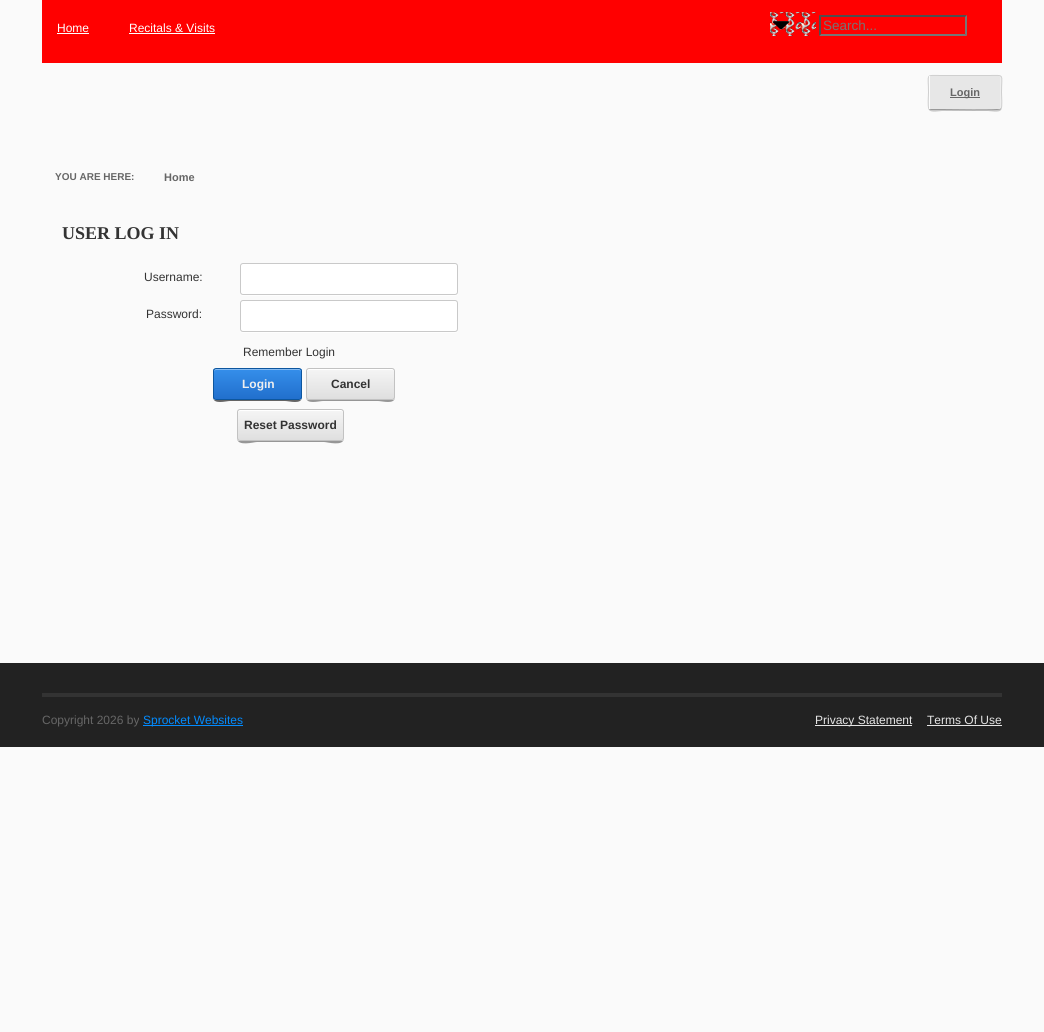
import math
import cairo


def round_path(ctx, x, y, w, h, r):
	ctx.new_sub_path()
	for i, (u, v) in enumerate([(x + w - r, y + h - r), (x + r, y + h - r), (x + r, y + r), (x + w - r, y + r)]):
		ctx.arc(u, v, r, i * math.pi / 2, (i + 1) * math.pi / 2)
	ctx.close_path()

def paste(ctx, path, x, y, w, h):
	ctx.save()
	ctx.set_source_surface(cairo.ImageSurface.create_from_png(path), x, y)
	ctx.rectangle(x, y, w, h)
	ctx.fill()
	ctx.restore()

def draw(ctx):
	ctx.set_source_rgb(0.98, 0.98, 0.98)
	ctx.paint()
	ctx.set_source_rgb(1, 0, 0)
	ctx.rectangle(42, 0, 960, 63)
	ctx.fill()
	ctx.select_font_face('Liberation Sans')
	ctx.set_font_size(12)
	ctx.set_source_rgb(1, 1, 1)
	ctx.move_to(57, 32)
	ctx.show_text('Home')
	ctx.rectangle(57, 33, 32, 1)
	ctx.fill()
	ctx.move_to(129, 32)
	ctx.show_text('Recitals & Visits')
	ctx.rectangle(129, 33, 86, 1)
	ctx.fill()
	paste(ctx, 'media/1.png', 770, 12, 46, 24)
	paste(ctx, 'media/2.png', 773, 21, 16, 8)
	ctx.set_source_rgb(0.31, 0.31, 0.31)
	ctx.new_path()
	ctx.move_to(819, 15)
	ctx.line_to(967, 15)
	ctx.line_to(965, 17)
	ctx.line_to(821, 17)
	ctx.close_path()
	ctx.fill()
	ctx.set_source_rgb(0.463, 0.463, 0.463)
	ctx.new_path()
	ctx.move_to(967, 15)
	ctx.line_to(967, 36)
	ctx.line_to(965, 34)
	ctx.line_to(965, 17)
	ctx.close_path()
	ctx.fill()
	ctx.new_path()
	ctx.move_to(967, 36)
	ctx.line_to(819, 36)
	ctx.line_to(821, 34)
	ctx.line_to(965, 34)
	ctx.close_path()
	ctx.fill()
	ctx.set_source_rgb(0.31, 0.31, 0.31)
	ctx.new_path()
	ctx.move_to(819, 36)
	ctx.line_to(819, 15)
	ctx.line_to(821, 17)
	ctx.line_to(821, 34)
	ctx.close_path()
	ctx.fill()
	ctx.set_font_size(13.5)
	ctx.set_source_rgb(0.459, 0.459, 0.459)
	ctx.move_to(823, 30)
	ctx.show_text('Search...')
	ctx.set_source_rgb(0.784, 0.784, 0.784)
	ctx.new_path()
	ctx.move_to(928, 107)
	ctx.curve_to(928, 114, 938, 111, 942, 111)
	ctx.line_to(988, 111)
	ctx.curve_to(992, 111, 1002, 114, 1002, 107)
	ctx.curve_to(1002, 109, 1001, 110, 999, 110)
	ctx.line_to(931, 110)
	ctx.curve_to(929, 110, 928, 109, 928, 107)
	ctx.close_path()
	ctx.fill()
	ctx.set_source_rgb(0.933, 0.933, 0.933)
	round_path(ctx, 928, 75, 74, 35, 3)
	ctx.fill()
	ctx.new_path()
	ctx.move_to(1001, 109)
	ctx.line_to(1000.5, 109)
	ctx.curve_to(998.5, 110.5, 949, 109.5, 942.5, 109.5)
	ctx.line_to(931, 109.5)
	ctx.line_to(929, 109)
	ctx.set_source_rgb(0.6, 0.6, 0.6)
	ctx.set_line_width(1)
	ctx.stroke()
	ctx.new_path()
	ctx.move_to(929, 109)
	ctx.curve_to(927.5, 107, 928.5, 95.5, 928.5, 92.5)
	ctx.curve_to(928.5, 73, 924.5, 75.5, 942.5, 75.5)
	ctx.line_to(987.5, 75.5)
	ctx.curve_to(1005.5, 75.5, 1001.5, 73, 1001.5, 92.5)
	ctx.curve_to(1001.5, 95.5, 1002.5, 107, 1001, 109)
	ctx.set_source_rgb(0.812, 0.812, 0.812)
	ctx.stroke()
	ctx.set_source_rgb(0.988, 0.988, 0.988)
	ctx.rectangle(929, 76, 1, 33)
	ctx.fill()
	ctx.set_source_rgb(0.906, 0.906, 0.906)
	ctx.rectangle(930, 76, 70, 33)
	ctx.fill()
	ctx.set_source_rgb(0.4, 0.4, 0.4)
	ctx.rectangle(950, 97, 30, 1)
	ctx.fill()
	ctx.select_font_face('Liberation Sans', cairo.FONT_SLANT_NORMAL, cairo.FONT_WEIGHT_BOLD)
	ctx.set_font_size(11)
	ctx.move_to(950, 96)
	ctx.show_text('Login')
	ctx.set_font_size(10)
	ctx.move_to(55, 180)
	ctx.show_text('YOU ARE HERE:')
	ctx.set_font_size(11)
	ctx.move_to(164, 181)
	ctx.show_text('Home')
	ctx.select_font_face('Liberation Serif', cairo.FONT_SLANT_NORMAL, cairo.FONT_WEIGHT_BOLD)
	ctx.set_font_size(18)
	ctx.set_source_rgb(0.2, 0.2, 0.2)
	ctx.move_to(62, 239)
	ctx.show_text('USER LOG IN')
	ctx.select_font_face('Liberation Sans')
	ctx.set_font_size(12)
	ctx.move_to(144, 281)
	ctx.show_text('Username:')
	ctx.set_source_rgb(0.996, 0.996, 0.996)
	ctx.new_path()
	ctx.move_to(240, 292)
	ctx.line_to(240, 293)
	ctx.curve_to(240, 295, 241, 296, 243, 296)
	ctx.line_to(455, 296)
	ctx.curve_to(457, 296, 458, 295, 458, 293)
	ctx.line_to(458, 292)
	ctx.curve_to(458, 294, 457, 295, 455, 295)
	ctx.line_to(243, 295)
	ctx.curve_to(241, 295, 240, 294, 240, 292)
	ctx.close_path()
	ctx.fill()
	ctx.set_source_rgb(1, 1, 1)
	round_path(ctx, 240.5, 263.5, 217, 31, 2.5)
	ctx.fill_preserve()
	ctx.set_source_rgb(0.788, 0.788, 0.788)
	ctx.stroke()
	ctx.set_source_rgb(0.2, 0.2, 0.2)
	ctx.move_to(146, 318)
	ctx.show_text('Password:')
	ctx.set_source_rgb(0.996, 0.996, 0.996)
	ctx.new_path()
	ctx.move_to(240, 329)
	ctx.line_to(240, 330)
	ctx.curve_to(240, 332, 241, 333, 243, 333)
	ctx.line_to(455, 333)
	ctx.curve_to(457, 333, 458, 332, 458, 330)
	ctx.line_to(458, 329)
	ctx.curve_to(458, 331, 457, 332, 455, 332)
	ctx.line_to(243, 332)
	ctx.curve_to(241, 332, 240, 331, 240, 329)
	ctx.close_path()
	ctx.fill()
	ctx.set_source_rgb(1, 1, 1)
	round_path(ctx, 240.5, 300.5, 217, 31, 2.5)
	ctx.fill_preserve()
	ctx.set_source_rgb(0.788, 0.788, 0.788)
	ctx.stroke()
	ctx.set_source_rgb(0.2, 0.2, 0.2)
	ctx.move_to(243, 356)
	ctx.show_text('Remember Login')
	ctx.set_source_rgb(0.392, 0.392, 0.392)
	ctx.new_path()
	ctx.move_to(213, 397)
	ctx.curve_to(213, 405, 226, 401, 230, 401)
	ctx.line_to(285, 401)
	ctx.curve_to(289, 401, 302, 405, 302, 397)
	ctx.curve_to(302, 399, 301, 400, 299, 400)
	ctx.line_to(216, 400)
	ctx.curve_to(214, 400, 213, 399, 213, 397)
	ctx.close_path()
	ctx.fill()
	ctx.save()
	round_path(ctx, 213, 368, 89, 32, 3)
	ctx.clip()
	gradient = cairo.LinearGradient(258, 369, 258, 399)
	gradient.add_color_stop_rgba(0, 0.208, 0.557, 0.918, 1)
	gradient.add_color_stop_rgba(1, 0.129, 0.439, 0.804, 1)
	ctx.set_source(gradient)
	ctx.rectangle(213, 369, 89, 30)
	ctx.fill()
	ctx.restore()
	ctx.set_source_rgba(1, 1, 1, 0.4)
	ctx.new_path()
	ctx.move_to(216, 370)
	ctx.line_to(299, 370)
	ctx.curve_to(300, 370, 301, 371, 301, 372)
	ctx.curve_to(301, 365, 288, 369, 285, 369)
	ctx.line_to(230, 369)
	ctx.curve_to(227, 369, 214, 365, 214, 372)
	ctx.curve_to(214, 371, 215, 370, 216, 370)
	ctx.close_path()
	ctx.fill()
	round_path(ctx, 213.5, 368.5, 88, 31, 2.5)
	ctx.set_source_rgb(0.051, 0.337, 0.62)
	ctx.stroke()
	ctx.select_font_face('Liberation Sans', cairo.FONT_SLANT_NORMAL, cairo.FONT_WEIGHT_BOLD)
	ctx.set_source_rgb(0.937, 0.937, 0.937)
	ctx.move_to(242, 388)
	ctx.show_text('Login')
	ctx.set_source_rgb(0.588, 0.588, 0.588)
	ctx.new_path()
	ctx.move_to(306, 397)
	ctx.curve_to(306, 405, 319, 401, 323, 401)
	ctx.line_to(378, 401)
	ctx.curve_to(382, 401, 395, 405, 395, 397)
	ctx.curve_to(395, 399, 394, 400, 392, 400)
	ctx.line_to(309, 400)
	ctx.curve_to(307, 400, 306, 399, 306, 397)
	ctx.close_path()
	ctx.fill()
	ctx.save()
	round_path(ctx, 306, 368, 89, 32, 3)
	ctx.clip()
	gradient = cairo.LinearGradient(351, 369, 351, 399)
	gradient.add_color_stop_rgba(0, 0.961, 0.961, 0.961, 1)
	gradient.add_color_stop_rgba(1, 0.875, 0.875, 0.875, 1)
	ctx.set_source(gradient)
	ctx.rectangle(306, 369, 89, 30)
	ctx.fill()
	ctx.restore()
	ctx.set_source_rgb(1, 1, 1)
	ctx.new_path()
	ctx.move_to(309, 370)
	ctx.line_to(392, 370)
	ctx.curve_to(393, 370, 394, 371, 394, 372)
	ctx.curve_to(394, 365, 381, 369, 378, 369)
	ctx.line_to(323, 369)
	ctx.curve_to(320, 369, 307, 365, 307, 372)
	ctx.curve_to(307, 371, 308, 370, 309, 370)
	ctx.close_path()
	ctx.fill()
	round_path(ctx, 306.5, 368.5, 88, 31, 2.5)
	ctx.set_source_rgb(0.761, 0.761, 0.761)
	ctx.stroke()
	ctx.set_source_rgb(0.2, 0.2, 0.2)
	ctx.move_to(331, 388)
	ctx.show_text('Cancel')
	ctx.set_source_rgb(0.588, 0.588, 0.588)
	ctx.new_path()
	ctx.move_to(237, 438)
	ctx.curve_to(237, 447, 254, 442, 257, 442)
	ctx.line_to(324, 442)
	ctx.curve_to(327, 442, 344, 447, 344, 438)
	ctx.curve_to(344, 440, 343, 441, 341, 441)
	ctx.line_to(240, 441)
	ctx.curve_to(238, 441, 237, 440, 237, 438)
	ctx.close_path()
	ctx.fill()
	ctx.save()
	round_path(ctx, 237, 409, 107, 32, 3)
	ctx.clip()
	gradient = cairo.LinearGradient(291, 410, 291, 440)
	gradient.add_color_stop_rgba(0, 0.961, 0.961, 0.961, 1)
	gradient.add_color_stop_rgba(1, 0.875, 0.875, 0.875, 1)
	ctx.set_source(gradient)
	ctx.rectangle(237, 410, 107, 30)
	ctx.fill()
	ctx.restore()
	ctx.set_source_rgb(1, 1, 1)
	ctx.new_path()
	ctx.move_to(240, 411)
	ctx.line_to(341, 411)
	ctx.curve_to(342, 411, 343, 412, 343, 413)
	ctx.curve_to(343, 412, 343, 410, 341, 410)
	ctx.line_to(240, 410)
	ctx.curve_to(238, 410, 238, 412, 238, 413)
	ctx.curve_to(238, 412, 239, 411, 240, 411)
	ctx.close_path()
	ctx.fill()
	round_path(ctx, 237.5, 409.5, 106, 31, 2.5)
	ctx.set_source_rgb(0.761, 0.761, 0.761)
	ctx.stroke()
	ctx.set_source_rgb(0.2, 0.2, 0.2)
	ctx.move_to(244, 429)
	ctx.show_text('Reset Password')
	ctx.set_source_rgb(0.133, 0.133, 0.133)
	ctx.rectangle(0, 663, 1044, 84)
	ctx.fill()
	ctx.set_source_rgb(0.2, 0.2, 0.2)
	ctx.rectangle(42, 693, 960, 4)
	ctx.fill()
	ctx.select_font_face('Liberation Sans')
	ctx.set_source_rgb(0.4, 0.4, 0.4)
	ctx.move_to(42, 724)
	ctx.show_text('Copyright 2026 by')
	ctx.set_source_rgb(0.008, 0.545, 1)
	ctx.rectangle(143, 725, 100, 1)
	ctx.fill()
	ctx.move_to(143, 724)
	ctx.show_text('Sprocket Websites')
	ctx.set_source_rgb(0.898, 0.898, 0.898)
	ctx.rectangle(815, 725, 97, 1)
	ctx.fill()
	ctx.move_to(815, 724)
	ctx.show_text('Privacy Statement')
	ctx.move_to(927, 724)
	ctx.show_text('Terms Of Use')
	ctx.rectangle(927, 725, 75, 1)
	ctx.fill()


surface = cairo.ImageSurface(cairo.FORMAT_RGB24, 1044, 1032)
ctx = cairo.Context(surface)
options = cairo.FontOptions()
options.set_hint_metrics(cairo.HINT_METRICS_OFF)
options.set_hint_style(cairo.HINT_STYLE_NONE)
ctx.set_font_options(options)
ctx.set_miter_limit(4)
draw(ctx)
surface.write_to_png('image.png')
